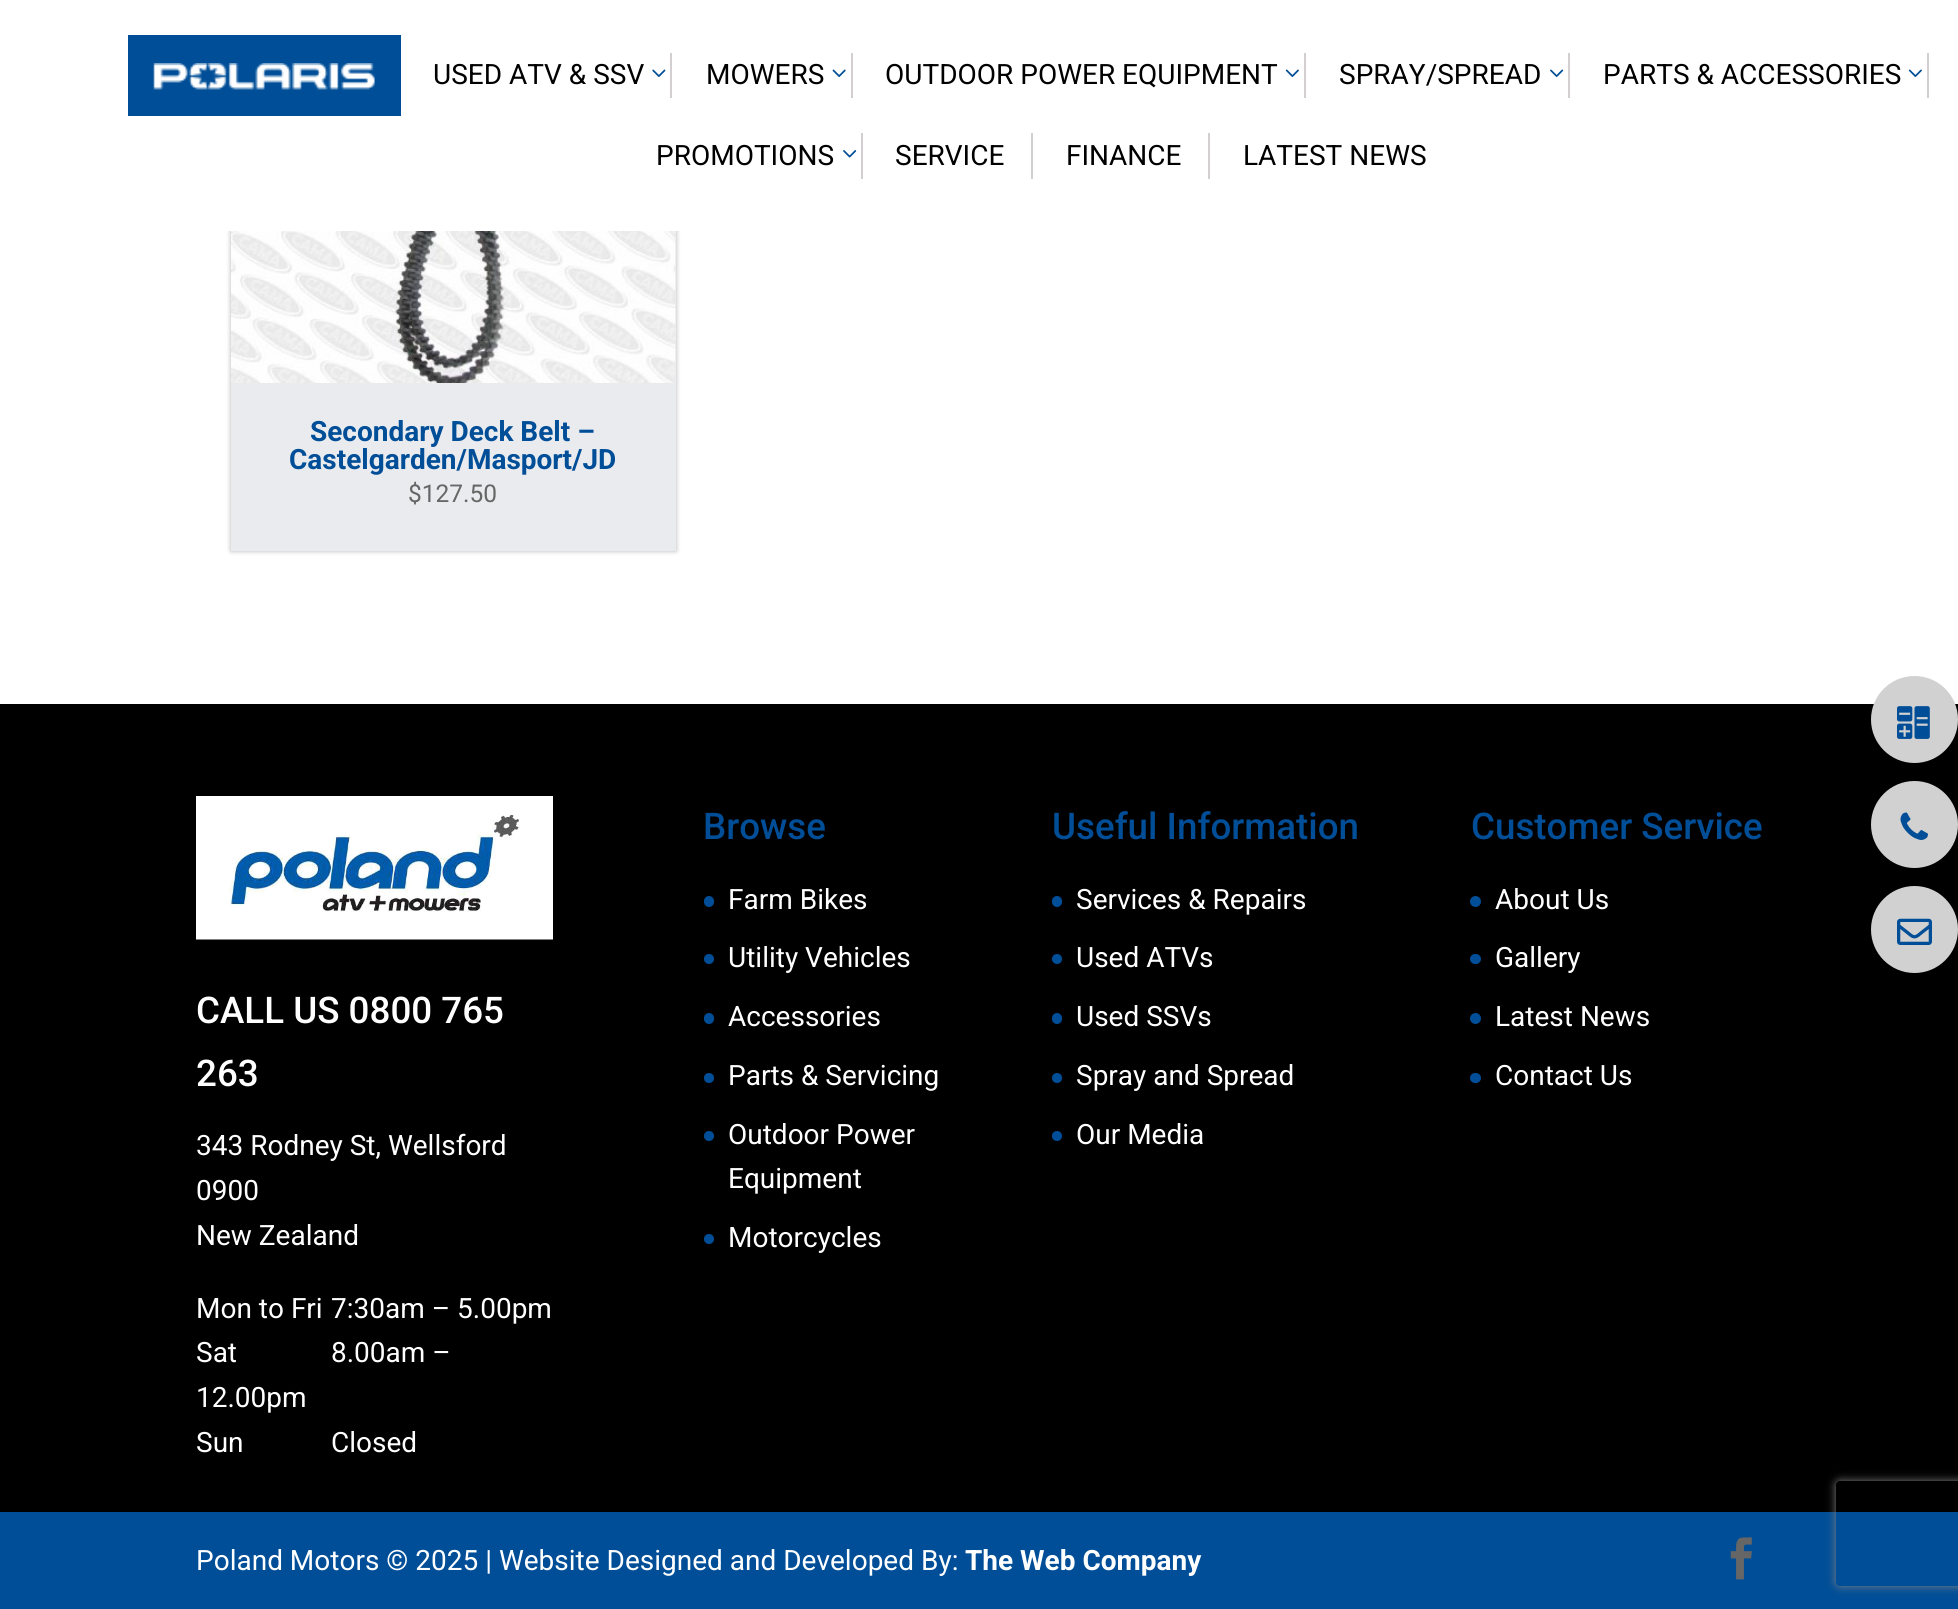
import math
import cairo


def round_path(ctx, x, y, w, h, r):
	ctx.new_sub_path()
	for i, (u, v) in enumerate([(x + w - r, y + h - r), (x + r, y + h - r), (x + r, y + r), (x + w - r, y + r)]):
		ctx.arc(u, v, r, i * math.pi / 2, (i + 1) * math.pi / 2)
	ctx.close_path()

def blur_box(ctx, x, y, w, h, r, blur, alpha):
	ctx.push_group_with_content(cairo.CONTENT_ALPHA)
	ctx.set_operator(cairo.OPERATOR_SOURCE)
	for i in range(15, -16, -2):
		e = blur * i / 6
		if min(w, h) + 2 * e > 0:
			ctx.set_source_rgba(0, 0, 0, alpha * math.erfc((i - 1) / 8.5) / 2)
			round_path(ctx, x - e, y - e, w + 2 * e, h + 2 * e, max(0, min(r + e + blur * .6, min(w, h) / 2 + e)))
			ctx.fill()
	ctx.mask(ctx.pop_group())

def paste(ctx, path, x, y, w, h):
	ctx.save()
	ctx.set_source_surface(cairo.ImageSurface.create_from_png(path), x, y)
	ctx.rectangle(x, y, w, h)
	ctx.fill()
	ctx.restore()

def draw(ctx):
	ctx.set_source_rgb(1, 1, 1)
	ctx.paint()
	ctx.set_source_rgb(0, 0, 0)
	blur_box(ctx, 231, -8, 445, 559, 0, 2.5, 0.3)
	ctx.set_source_rgb(1, 1, 1)
	ctx.rectangle(226, 0, 455, 231)
	ctx.fill()
	ctx.set_source_rgb(0, 0.306, 0.592)
	ctx.rectangle(128, 35, 273, 81)
	ctx.fill()
	paste(ctx, 'media/1.png', 153, 63, 222, 27)
	ctx.set_source_rgb(0.827, 0.808, 0.824)
	ctx.rectangle(670, 53, 2, 45)
	ctx.fill()
	ctx.select_font_face('Roboto')
	ctx.set_font_size(28)
	ctx.set_source_rgb(0, 0, 0)
	ctx.move_to(433, 84)
	ctx.show_text('USED ATV & SSV')
	paste(ctx, 'media/2.png', 652, 69, 14, 8)
	ctx.set_source_rgb(0.827, 0.808, 0.824)
	ctx.rectangle(851, 53, 2, 45)
	ctx.fill()
	ctx.set_source_rgb(0, 0, 0)
	ctx.move_to(706, 84)
	ctx.show_text('MOWERS')
	paste(ctx, 'media/3.png', 832, 69, 14, 8)
	ctx.set_source_rgb(0.827, 0.808, 0.824)
	ctx.rectangle(1304, 53, 2, 45)
	ctx.fill()
	ctx.set_source_rgb(0, 0, 0)
	ctx.move_to(885, 84)
	ctx.show_text('OUTDOOR POWER EQUIPMENT')
	paste(ctx, 'media/4.png', 1285, 69, 14, 8)
	ctx.set_source_rgb(0.827, 0.808, 0.824)
	ctx.rectangle(1568, 53, 2, 45)
	ctx.fill()
	ctx.set_source_rgb(0, 0, 0)
	ctx.move_to(1339, 84)
	ctx.show_text('SPRAY/SPREAD')
	paste(ctx, 'media/5.png', 1550, 69, 14, 8)
	ctx.set_source_rgb(0.827, 0.808, 0.824)
	ctx.rectangle(1927, 53, 2, 45)
	ctx.fill()
	ctx.set_source_rgb(0, 0, 0)
	ctx.move_to(1603, 84)
	ctx.show_text('PARTS & ACCESSORIES')
	paste(ctx, 'media/4.png', 1908, 69, 14, 8)
	ctx.set_source_rgb(0.827, 0.808, 0.824)
	ctx.rectangle(861, 133, 2, 46)
	ctx.fill()
	ctx.set_source_rgb(0, 0, 0)
	ctx.move_to(656, 165)
	ctx.show_text('PROMOTIONS')
	paste(ctx, 'media/6.png', 843, 150, 14, 8)
	ctx.set_source_rgb(0.827, 0.808, 0.824)
	ctx.rectangle(1031, 133, 2, 46)
	ctx.fill()
	ctx.set_source_rgb(0, 0, 0)
	ctx.move_to(895, 165)
	ctx.show_text('SERVICE')
	ctx.set_source_rgb(0.827, 0.808, 0.824)
	ctx.rectangle(1208, 133, 2, 46)
	ctx.fill()
	ctx.set_source_rgb(0, 0, 0)
	ctx.move_to(1066, 165)
	ctx.show_text('FINANCE')
	ctx.move_to(1243, 165)
	ctx.show_text('LATEST NEWS')
	ctx.set_source_rgb(0.914, 0.918, 0.937)
	ctx.rectangle(231, 231, 445, 320)
	ctx.fill()
	paste(ctx, 'media/7.png', 231, 231, 445, 152)
	ctx.select_font_face('Roboto', cairo.FONT_SLANT_NORMAL, cairo.FONT_WEIGHT_BOLD)
	ctx.set_source_rgb(0, 0.306, 0.592)
	ctx.move_to(310, 441)
	ctx.show_text('Secondary Deck Belt –')
	ctx.move_to(289, 469)
	ctx.show_text('Castelgarden/Masport/JD')
	ctx.select_font_face('Roboto')
	ctx.set_font_size(24.5)
	ctx.set_source_rgb(0.4, 0.4, 0.4)
	ctx.move_to(408, 502)
	ctx.show_text('$127.50')
	ctx.set_source_rgb(0, 0, 0)
	ctx.rectangle(0, 704, 1958, 808)
	ctx.fill()
	ctx.select_font_face('Roboto Medium')
	ctx.set_font_size(36.75)
	ctx.set_source_rgb(0, 0.306, 0.592)
	ctx.move_to(703, 839)
	ctx.show_text('Browse')
	round_path(ctx, 704, 896, 10, 11, 5)
	ctx.fill()
	ctx.select_font_face('Roboto')
	ctx.set_font_size(28)
	ctx.set_source_rgb(1, 1, 1)
	ctx.move_to(728, 909)
	ctx.show_text('Farm Bikes')
	ctx.set_source_rgb(0, 0.306, 0.592)
	ctx.new_path()
	ctx.arc(709, 959, 5, 0, 2 * math.pi)
	ctx.fill()
	ctx.set_source_rgb(1, 1, 1)
	ctx.move_to(728, 967)
	ctx.show_text('Utility Vehicles')
	ctx.set_source_rgb(0, 0.306, 0.592)
	round_path(ctx, 704, 1013, 10, 11, 5)
	ctx.fill()
	ctx.set_source_rgb(1, 1, 1)
	ctx.move_to(728, 1026)
	ctx.show_text('Accessories')
	ctx.set_source_rgb(0, 0.306, 0.592)
	ctx.new_path()
	ctx.arc(709, 1078, 5, 0, 2 * math.pi)
	ctx.fill()
	ctx.set_source_rgb(1, 1, 1)
	ctx.move_to(728, 1085)
	ctx.show_text('Parts & Servicing')
	ctx.set_source_rgb(0, 0.306, 0.592)
	ctx.new_path()
	ctx.arc(709, 1136, 5, 0, 2 * math.pi)
	ctx.fill()
	ctx.set_source_rgb(1, 1, 1)
	ctx.move_to(728, 1144)
	ctx.show_text('Outdoor Power')
	ctx.move_to(728, 1188)
	ctx.show_text('Equipment')
	ctx.set_source_rgb(0, 0.306, 0.592)
	ctx.new_path()
	ctx.arc(709, 1239, 5, 0, 2 * math.pi)
	ctx.fill()
	ctx.set_source_rgb(1, 1, 1)
	ctx.move_to(728, 1247)
	ctx.show_text('Motorcycles')
	ctx.select_font_face('Roboto Medium')
	ctx.set_font_size(36.75)
	ctx.set_source_rgb(0, 0.306, 0.592)
	ctx.move_to(1052, 839)
	ctx.show_text('Useful Information')
	round_path(ctx, 1052, 896, 10, 11, 5)
	ctx.fill()
	ctx.select_font_face('Roboto')
	ctx.set_font_size(28)
	ctx.set_source_rgb(1, 1, 1)
	ctx.move_to(1076, 909)
	ctx.show_text('Services & Repairs')
	ctx.set_source_rgb(0, 0.306, 0.592)
	ctx.new_path()
	ctx.arc(1057, 959, 5, 0, 2 * math.pi)
	ctx.fill()
	ctx.set_source_rgb(1, 1, 1)
	ctx.move_to(1076, 967)
	ctx.show_text('Used ATVs')
	ctx.set_source_rgb(0, 0.306, 0.592)
	round_path(ctx, 1052, 1013, 10, 11, 5)
	ctx.fill()
	ctx.set_source_rgb(1, 1, 1)
	ctx.move_to(1076, 1026)
	ctx.show_text('Used SSVs')
	ctx.set_source_rgb(0, 0.306, 0.592)
	ctx.new_path()
	ctx.arc(1057, 1078, 5, 0, 2 * math.pi)
	ctx.fill()
	ctx.set_source_rgb(1, 1, 1)
	ctx.move_to(1076, 1085)
	ctx.show_text('Spray and Spread')
	ctx.set_source_rgb(0, 0.306, 0.592)
	ctx.new_path()
	ctx.arc(1057, 1136, 5, 0, 2 * math.pi)
	ctx.fill()
	ctx.set_source_rgb(1, 1, 1)
	ctx.move_to(1076, 1144)
	ctx.show_text('Our Media')
	ctx.select_font_face('Roboto Medium')
	ctx.set_font_size(36.75)
	ctx.set_source_rgb(0, 0.306, 0.592)
	ctx.move_to(1471, 839)
	ctx.show_text('Customer Service')
	ctx.new_path()
	ctx.arc(1475.5, 901.5, 5.5, 0, 2 * math.pi)
	ctx.fill()
	ctx.select_font_face('Roboto')
	ctx.set_font_size(28)
	ctx.set_source_rgb(1, 1, 1)
	ctx.move_to(1495, 909)
	ctx.show_text('About Us')
	ctx.set_source_rgb(0, 0.306, 0.592)
	round_path(ctx, 1470, 954, 11, 10, 5)
	ctx.fill()
	ctx.set_source_rgb(1, 1, 1)
	ctx.move_to(1495, 967)
	ctx.show_text('Gallery')
	ctx.set_source_rgb(0, 0.306, 0.592)
	ctx.new_path()
	ctx.arc(1475.5, 1018.5, 5.5, 0, 2 * math.pi)
	ctx.fill()
	ctx.set_source_rgb(1, 1, 1)
	ctx.move_to(1495, 1026)
	ctx.show_text('Latest News')
	ctx.set_source_rgb(0, 0.306, 0.592)
	round_path(ctx, 1470, 1073, 11, 10, 5)
	ctx.fill()
	ctx.set_source_rgb(1, 1, 1)
	ctx.move_to(1495, 1085)
	ctx.show_text('Contact Us')
	paste(ctx, 'media/8.png', 196, 796, 357, 144)
	ctx.select_font_face('Roboto Medium')
	ctx.set_font_size(36.75)
	ctx.move_to(196, 1023)
	ctx.show_text('CALL US 0800 765')
	ctx.move_to(196, 1086)
	ctx.show_text('263')
	ctx.select_font_face('Roboto')
	ctx.set_font_size(28)
	for x, y, s in [
		(196, 1155, '343 Rodney St, Wellsford'),
		(196, 1200, '0900'),
		(196, 1245, 'New Zealand'),
		(196, 1318, 'Mon to Fri'),
		(331, 1318, '7:30am – 5.00pm'),
		(196, 1362, 'Sat'),
		(331, 1362, '8.00am –'),
		(196, 1407, '12.00pm'),
		(196, 1452, 'Sun'),
		(331, 1452, 'Closed'),
	]:
		ctx.move_to(x, y)
		ctx.show_text(s)
	ctx.set_source_rgb(0, 0.306, 0.592)
	ctx.rectangle(0, 1512, 1958, 97)
	ctx.fill()
	ctx.set_source_rgb(1, 1, 1)
	ctx.move_to(196, 1570)
	ctx.show_text('Poland Motors © 2025 | Website Designed and Developed By:')
	ctx.select_font_face('Roboto', cairo.FONT_SLANT_NORMAL, cairo.FONT_WEIGHT_BOLD)
	ctx.move_to(965, 1570)
	ctx.show_text('The Web Company')
	paste(ctx, 'media/9.png', 1730, 1537, 22, 43)
	ctx.set_source_rgb(0.82, 0.82, 0.82)
	ctx.arc(1914.5, 719.5, 43.5, 0, 2 * math.pi)
	ctx.fill()
	paste(ctx, 'media/10.png', 1897, 706, 33, 33)
	ctx.arc(1914.5, 824.5, 43.5, 0, 2 * math.pi)
	ctx.fill()
	paste(ctx, 'media/11.png', 1900, 812, 28, 28)
	ctx.arc(1914.5, 929.5, 43.5, 0, 2 * math.pi)
	ctx.fill()
	paste(ctx, 'media/12.png', 1897, 918, 35, 27)
	ctx.save()
	ctx.set_fill_rule(cairo.FILL_RULE_EVEN_ODD)
	ctx.new_path()
	ctx.move_to(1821, 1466)
	ctx.line_to(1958, 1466)
	ctx.line_to(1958, 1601)
	ctx.line_to(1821, 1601)
	ctx.close_path()
	ctx.move_to(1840, 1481)
	ctx.line_to(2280, 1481)
	ctx.curve_to(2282, 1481, 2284, 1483, 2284, 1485)
	ctx.line_to(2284, 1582)
	ctx.curve_to(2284, 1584, 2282, 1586, 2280, 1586)
	ctx.line_to(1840, 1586)
	ctx.curve_to(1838, 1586, 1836, 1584, 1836, 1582)
	ctx.line_to(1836, 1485)
	ctx.curve_to(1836, 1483, 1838, 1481, 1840, 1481)
	ctx.close_path()
	ctx.clip()
	ctx.set_source_rgb(0.502, 0.502, 0.502)
	blur_box(ctx, 1836, 1481, 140, 105, 4, 4.5, 1)
	ctx.restore()


surface = cairo.ImageSurface(cairo.FORMAT_RGB24, 1958, 1609)
ctx = cairo.Context(surface)
options = cairo.FontOptions()
options.set_hint_metrics(cairo.HINT_METRICS_OFF)
options.set_hint_style(cairo.HINT_STYLE_NONE)
ctx.set_font_options(options)
ctx.set_miter_limit(4)
draw(ctx)
surface.write_to_png('image.png')
